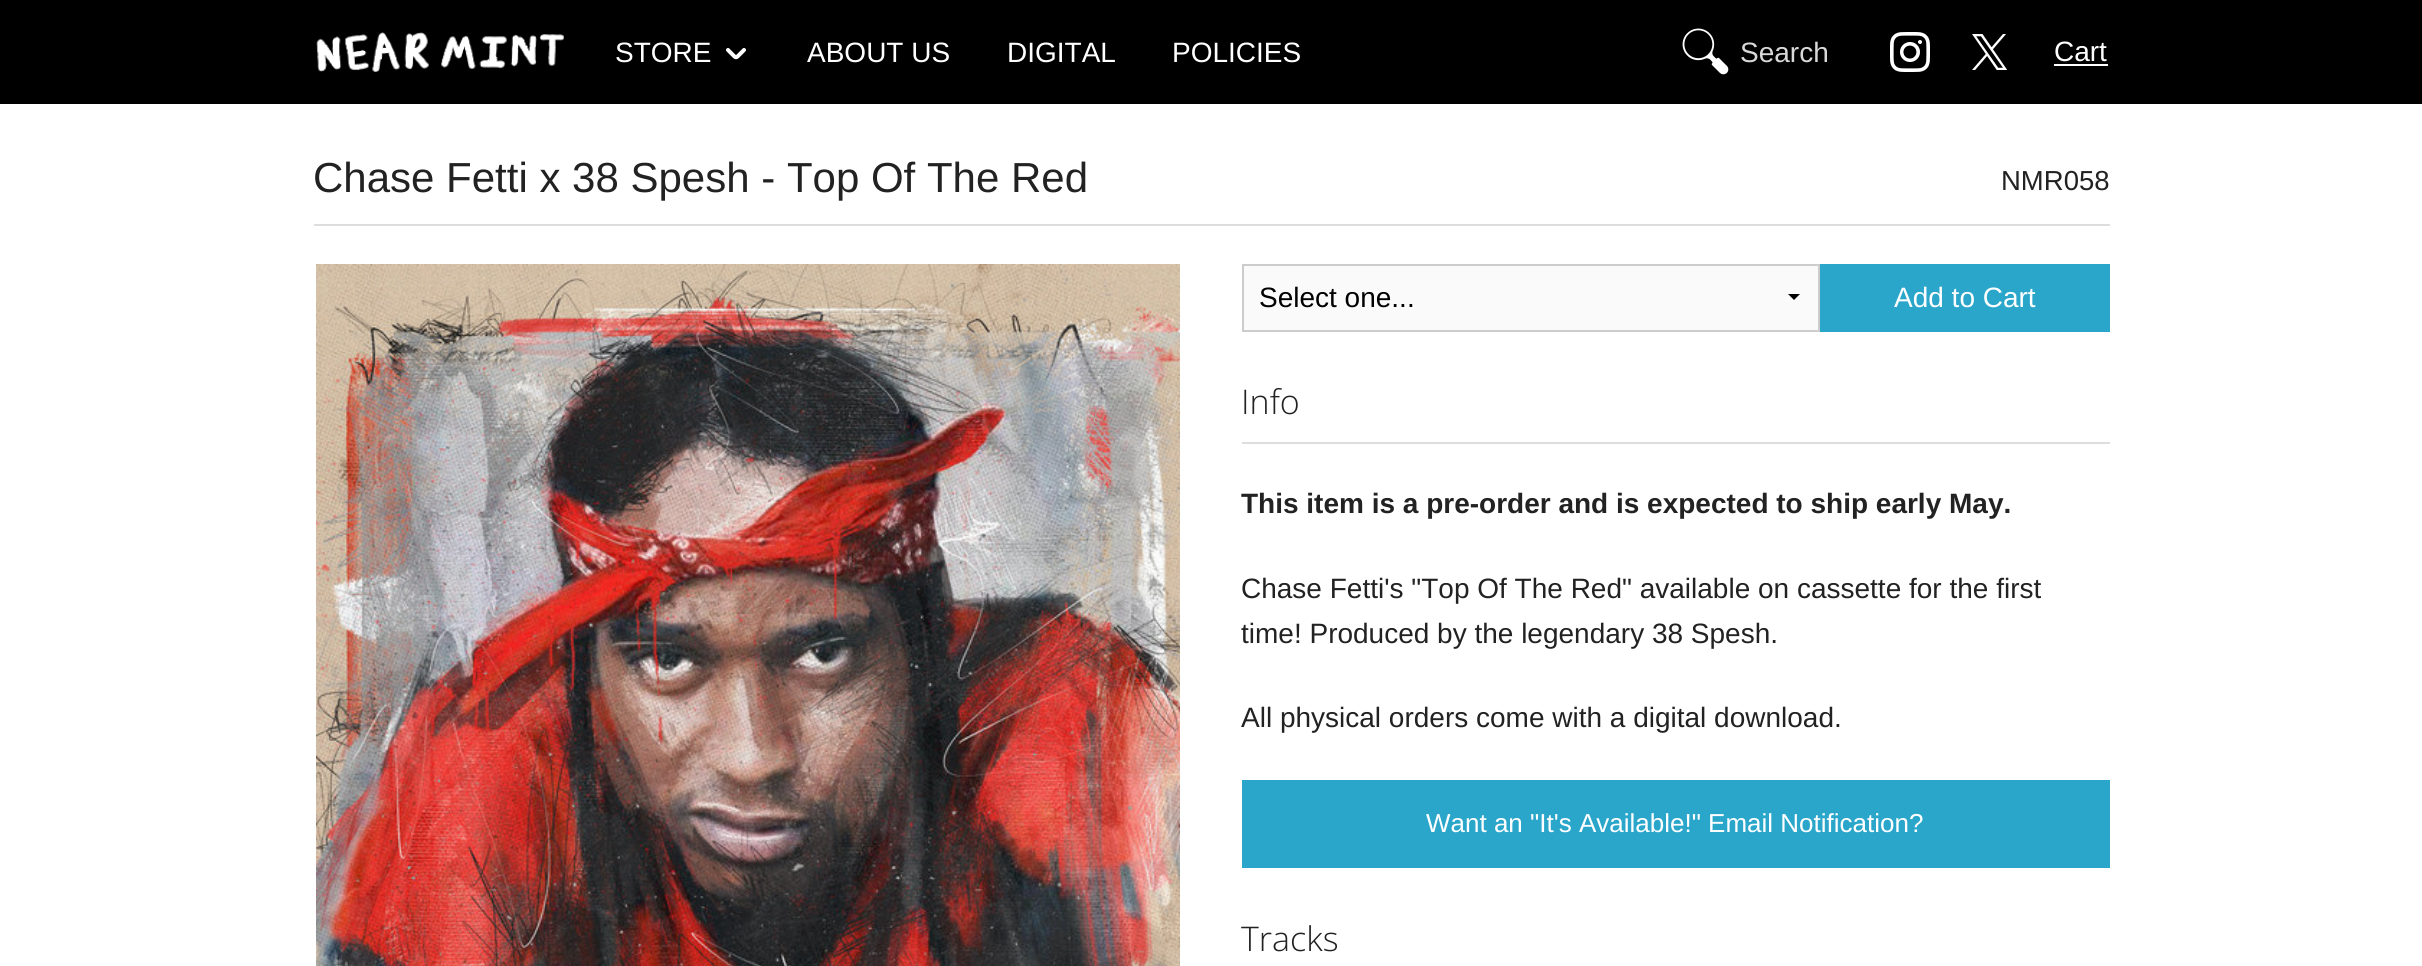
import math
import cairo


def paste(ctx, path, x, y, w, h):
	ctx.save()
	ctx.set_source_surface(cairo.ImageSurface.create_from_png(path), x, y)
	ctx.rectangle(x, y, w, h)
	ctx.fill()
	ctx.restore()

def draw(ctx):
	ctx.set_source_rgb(1, 1, 1)
	ctx.paint()
	ctx.set_source_rgb(0, 0, 0)
	ctx.rectangle(0, 0, 2422, 104)
	ctx.fill()
	paste(ctx, 'media/1.png', 316, 32, 248, 40)
	paste(ctx, 'media/2.png', 726, 48, 20, 12)
	ctx.select_font_face('Liberation Sans')
	ctx.set_font_size(28)
	ctx.set_source_rgb(1, 1, 1)
	for x, y, s in [
		(615, 62, 'STORE'),
		(807, 62, 'ABOUT US'),
		(1007, 62, 'DIGITAL'),
		(1172, 62, 'POLICIES'),
	]:
		ctx.move_to(x, y)
		ctx.show_text(s)
	paste(ctx, 'media/3.png', 1682, 28, 47, 47)
	ctx.set_source_rgb(0.851, 0.851, 0.851)
	ctx.move_to(1740, 62)
	ctx.show_text('Search')
	paste(ctx, 'media/4.png', 1890, 32, 40, 40)
	paste(ctx, 'media/5.png', 1972, 34, 36, 36)
	ctx.set_source_rgb(1, 1, 1)
	ctx.move_to(2054, 61)
	ctx.show_text('Cart')
	ctx.rectangle(2054, 64, 54, 2)
	ctx.fill()
	ctx.set_font_size(42)
	ctx.set_source_rgb(0.133, 0.133, 0.133)
	ctx.move_to(313, 192)
	ctx.show_text('Chase Fetti x 38 Spesh - Top Of The Red')
	ctx.set_font_size(27.5)
	ctx.move_to(2001, 190)
	ctx.show_text('NMR058')
	ctx.set_source_rgb(0.867, 0.867, 0.867)
	ctx.rectangle(314, 224, 1796, 2)
	ctx.fill()
	paste(ctx, 'media/6.png', 316, 264, 864, 702)
	ctx.set_source_rgb(0.98, 0.98, 0.98)
	ctx.rectangle(1244, 266, 574, 64)
	ctx.fill()
	ctx.set_source_rgb(0, 0, 0)
	ctx.new_path()
	ctx.move_to(1800, 294)
	ctx.line_to(1794, 300)
	ctx.line_to(1788, 294)
	ctx.close_path()
	ctx.fill()
	ctx.rectangle(1243, 265, 576, 66)
	ctx.set_source_rgb(0.8, 0.8, 0.8)
	ctx.stroke()
	ctx.set_font_size(28)
	ctx.set_source_rgb(0, 0, 0)
	ctx.move_to(1259, 307)
	ctx.show_text('Select one...')
	ctx.set_source_rgb(0.169, 0.651, 0.796)
	ctx.rectangle(1820, 264, 290, 68)
	ctx.fill()
	ctx.set_source_rgb(1, 1, 1)
	ctx.move_to(1894, 307)
	ctx.show_text('Add to Cart')
	ctx.select_font_face('Open Sans Light')
	ctx.set_font_size(34)
	ctx.set_source_rgb(0.133, 0.133, 0.133)
	ctx.move_to(1241, 414)
	ctx.show_text('Info')
	ctx.set_source_rgb(0.867, 0.867, 0.867)
	ctx.rectangle(1242, 442, 868, 2)
	ctx.fill()
	ctx.select_font_face('Liberation Sans', cairo.FONT_SLANT_NORMAL, cairo.FONT_WEIGHT_BOLD)
	ctx.set_font_size(28)
	ctx.set_source_rgb(0.133, 0.133, 0.133)
	ctx.move_to(1241, 513)
	ctx.show_text('This item is a pre-order and is expected to ship early May.')
	ctx.select_font_face('Liberation Sans')
	for x, y, s in [
		(1241, 598, 'Chase Fetti\'s "Top Of The Red" available on cassette for the first'),
		(1241, 643, 'time! Produced by the legendary 38 Spesh.'),
		(1241, 727, 'All physical orders come with a digital download.'),
	]:
		ctx.move_to(x, y)
		ctx.show_text(s)
	ctx.set_source_rgb(0.169, 0.651, 0.796)
	ctx.rectangle(1242, 780, 868, 88)
	ctx.fill()
	ctx.set_font_size(26)
	ctx.set_source_rgb(1, 1, 1)
	ctx.move_to(1426, 832)
	ctx.show_text('Want an "It\'s Available!" Email Notification?')
	ctx.select_font_face('Open Sans Light')
	ctx.set_font_size(34)
	ctx.set_source_rgb(0.133, 0.133, 0.133)
	ctx.move_to(1241, 951)
	ctx.show_text('Tracks')


surface = cairo.ImageSurface(cairo.FORMAT_RGB24, 2422, 966)
ctx = cairo.Context(surface)
options = cairo.FontOptions()
options.set_hint_metrics(cairo.HINT_METRICS_OFF)
options.set_hint_style(cairo.HINT_STYLE_NONE)
ctx.set_font_options(options)
ctx.set_miter_limit(4)
draw(ctx)
surface.write_to_png('image.png')
